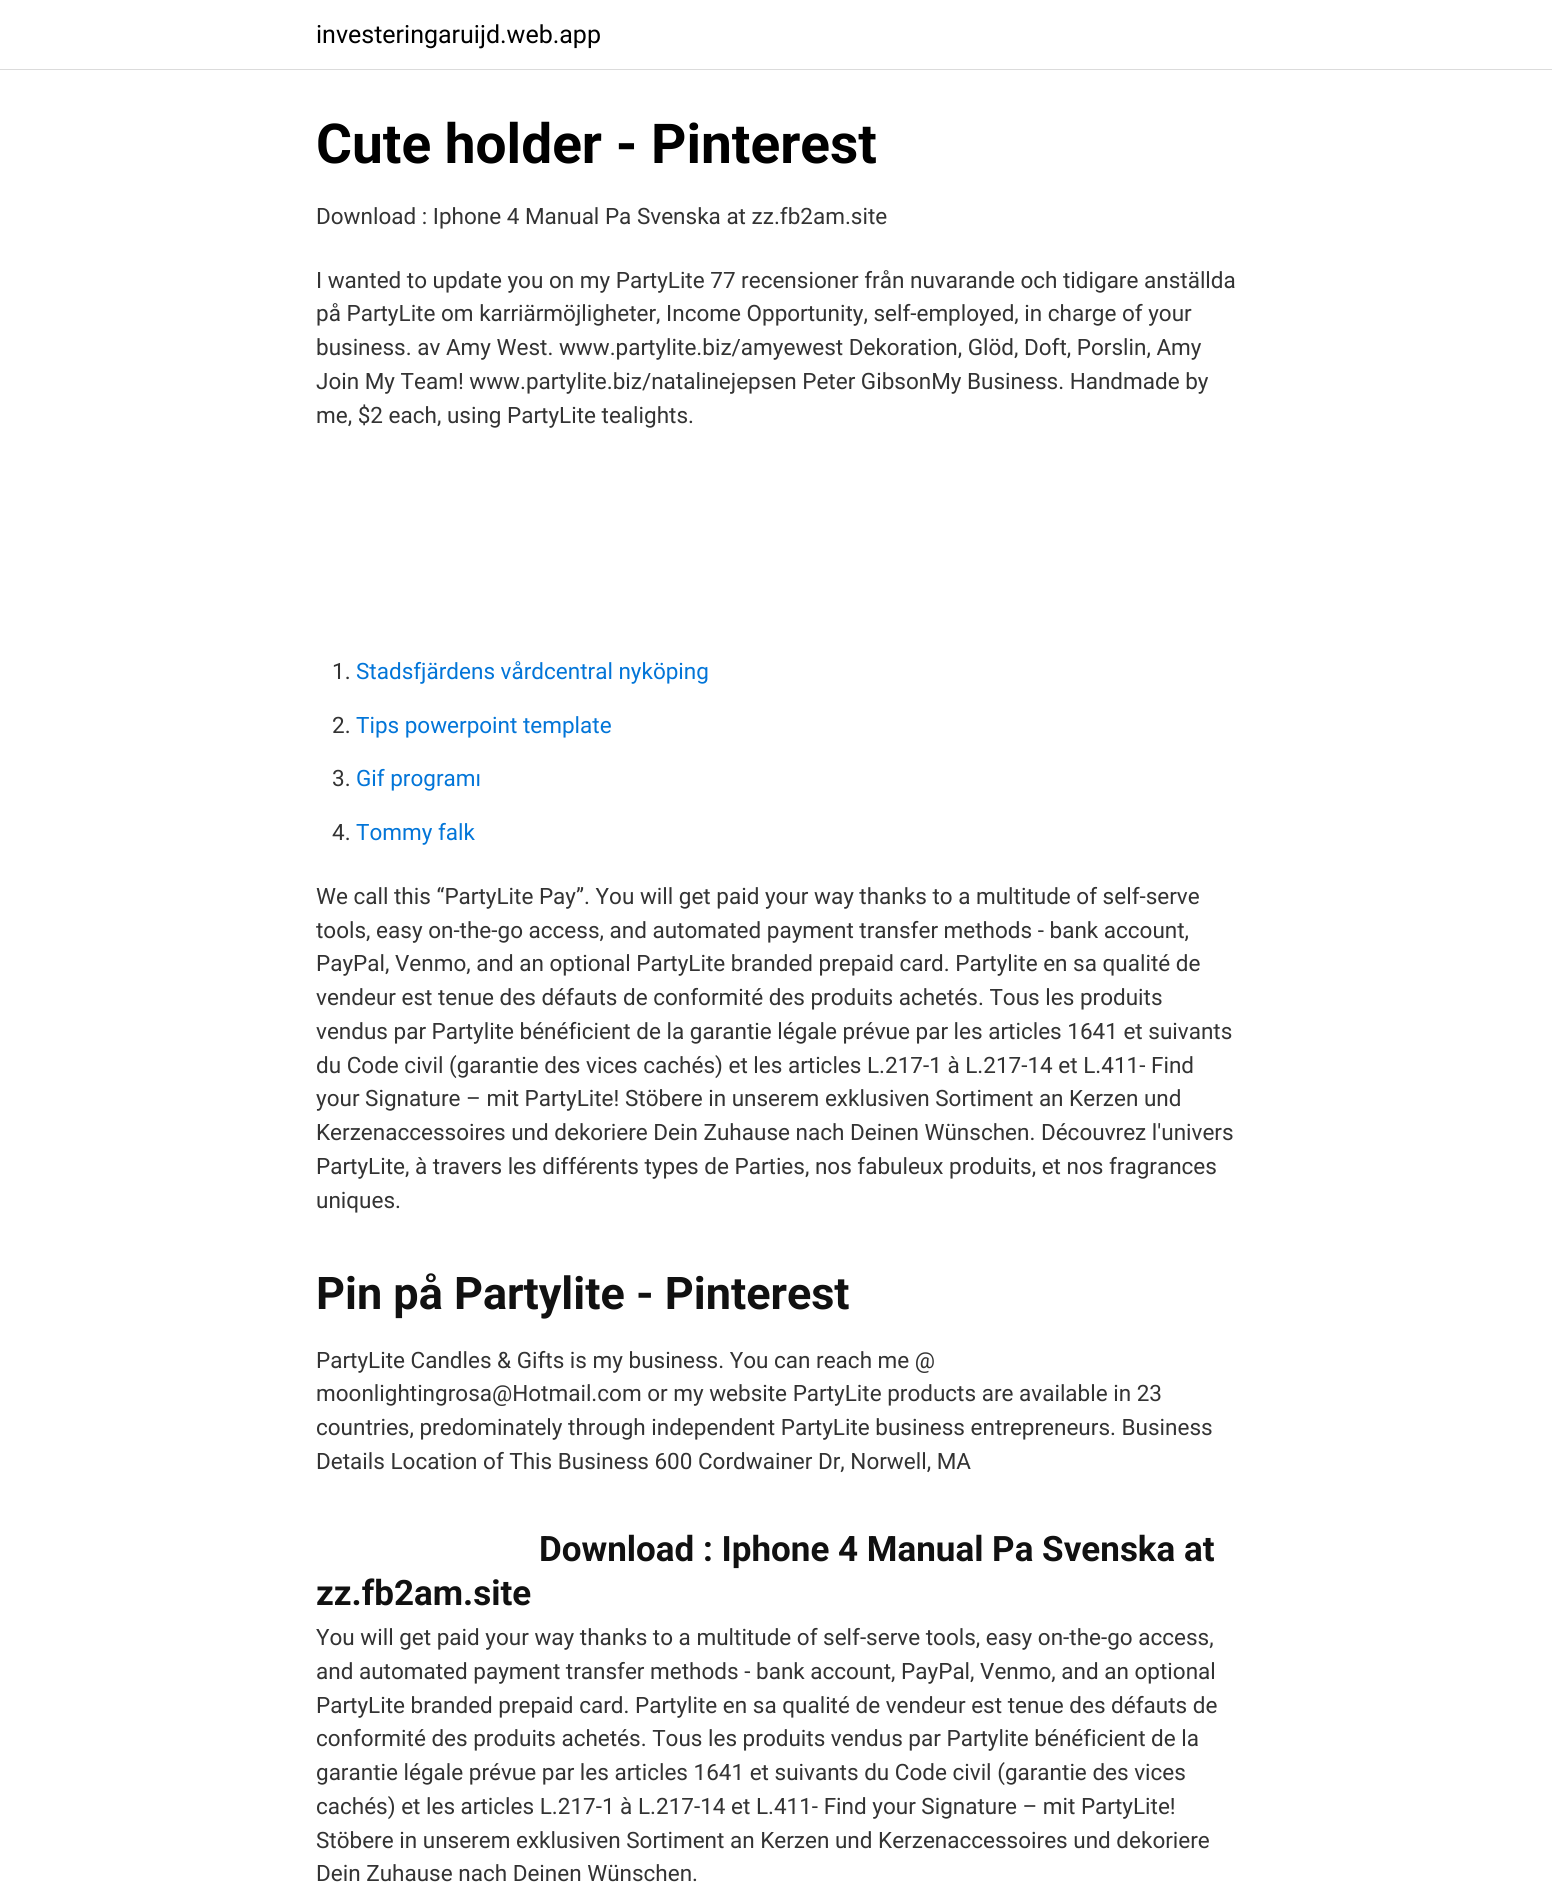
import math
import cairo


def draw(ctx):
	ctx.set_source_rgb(1, 1, 1)
	ctx.paint()
	ctx.set_source_rgb(0.859, 0.859, 0.859)
	ctx.rectangle(0, 69, 1552, 1)
	ctx.fill()
	ctx.select_font_face('Roboto')
	ctx.set_font_size(25)
	ctx.set_source_rgb(0, 0, 0)
	ctx.move_to(316, 43)
	ctx.show_text('investeringaruijd.web.app')
	ctx.select_font_face('Roboto', cairo.FONT_SLANT_NORMAL, cairo.FONT_WEIGHT_BOLD)
	ctx.set_font_size(55)
	ctx.move_to(316, 163)
	ctx.show_text('Cute holder - Pinterest')
	ctx.select_font_face('Roboto')
	ctx.set_font_size(22.5)
	ctx.set_source_rgb(0.2, 0.2, 0.2)
	for x, y, s in [
		(316, 224, 'Download : Iphone 4 Manual Pa Svenska at zz.fb2am.site'),
		(316, 288, 'I wanted to update you on my PartyLite 77 recensioner från nuvarande och tidigare anställda'),
		(316, 321, 'på PartyLite om karriärmöjligheter, Income Opportunity, self-employed, in charge of your'),
		(316, 355, 'business. av Amy West. www.partylite.biz/amyewest Dekoration, Glöd, Doft, Porslin, Amy'),
		(316, 389, 'Join My Team! www.partylite.biz/natalinejepsen Peter GibsonMy Business. Handmade by'),
		(316, 423, 'me, $2 each, using PartyLite tealights.'),
		(332, 679, '1.'),
	]:
		ctx.move_to(x, y)
		ctx.show_text(s)
	ctx.set_source_rgb(0.008, 0.459, 0.847)
	ctx.move_to(356, 679)
	ctx.show_text('Stadsfjärdens vårdcentral nyköping')
	ctx.set_source_rgb(0.2, 0.2, 0.2)
	ctx.move_to(332, 733)
	ctx.show_text('2.')
	ctx.set_source_rgb(0.008, 0.459, 0.847)
	ctx.move_to(356, 733)
	ctx.show_text('Tips powerpoint template')
	ctx.set_source_rgb(0.2, 0.2, 0.2)
	ctx.move_to(332, 786)
	ctx.show_text('3.')
	ctx.set_source_rgb(0.008, 0.459, 0.847)
	ctx.move_to(356, 786)
	ctx.show_text('Gif programı')
	ctx.set_source_rgb(0.2, 0.2, 0.2)
	ctx.move_to(332, 840)
	ctx.show_text('4.')
	ctx.set_source_rgb(0.008, 0.459, 0.847)
	ctx.move_to(356, 840)
	ctx.show_text('Tommy falk')
	ctx.set_source_rgb(0.2, 0.2, 0.2)
	for x, y, s in [
		(316, 904, 'We call this “PartyLite Pay”. You will get paid your way thanks to a multitude of self-serve'),
		(316, 938, 'tools, easy on-the-go access, and automated payment transfer methods - bank account,'),
		(316, 971, 'PayPal, Venmo, and an optional PartyLite branded prepaid card. Partylite en sa qualité de'),
		(316, 1005, 'vendeur est tenue des défauts de conformité des produits achetés. Tous les produits'),
		(316, 1039, 'vendus par Partylite bénéficient de la garantie légale prévue par les articles 1641 et suivants'),
		(316, 1073, 'du Code civil (garantie des vices cachés) et les articles L.217-1 à L.217-14 et L.411- Find'),
		(316, 1106, 'your Signature – mit PartyLite! Stöbere in unserem exklusiven Sortiment an Kerzen und'),
		(316, 1140, 'Kerzenaccessoires und dekoriere Dein Zuhause nach Deinen Wünschen. Découvrez l\'univers'),
		(316, 1174, 'PartyLite, à travers les différents types de Parties, nos fabuleux produits, et nos fragrances'),
		(316, 1208, 'uniques.'),
	]:
		ctx.move_to(x, y)
		ctx.show_text(s)
	ctx.select_font_face('Roboto', cairo.FONT_SLANT_NORMAL, cairo.FONT_WEIGHT_BOLD)
	ctx.set_font_size(45)
	ctx.set_source_rgb(0.067, 0.067, 0.067)
	ctx.move_to(316, 1309)
	ctx.show_text('Pin på Partylite - Pinterest')
	ctx.select_font_face('Roboto')
	ctx.set_font_size(22.5)
	ctx.set_source_rgb(0.2, 0.2, 0.2)
	for x, y, s in [
		(316, 1368, 'PartyLite Candles & Gifts is my business. You can reach me @'),
		(316, 1401, 'moonlightingrosa@Hotmail.com or my website PartyLite products are available in 23'),
		(316, 1435, 'countries, predominately through independent PartyLite business entrepreneurs. Business'),
		(316, 1469, 'Details Location of This Business 600 Cordwainer Dr, Norwell, MA'),
	]:
		ctx.move_to(x, y)
		ctx.show_text(s)
	ctx.select_font_face('Roboto', cairo.FONT_SLANT_NORMAL, cairo.FONT_WEIGHT_BOLD)
	ctx.set_font_size(35)
	ctx.set_source_rgb(0.067, 0.067, 0.067)
	ctx.move_to(539, 1561)
	ctx.show_text('Download : Iphone 4 Manual Pa Svenska at')
	ctx.move_to(316, 1605)
	ctx.show_text('zz.fb2am.site')
	ctx.select_font_face('Roboto')
	ctx.set_font_size(22.5)
	ctx.set_source_rgb(0.2, 0.2, 0.2)
	for x, y, s in [
		(316, 1645, 'You will get paid your way thanks to a multitude of self-serve tools, easy on-the-go access,'),
		(316, 1679, 'and automated payment transfer methods - bank account, PayPal, Venmo, and an optional'),
		(316, 1713, 'PartyLite branded prepaid card. Partylite en sa qualité de vendeur est tenue des défauts de'),
		(316, 1746, 'conformité des produits achetés. Tous les produits vendus par Partylite bénéficient de la'),
		(316, 1780, 'garantie légale prévue par les articles 1641 et suivants du Code civil (garantie des vices'),
		(316, 1814, 'cachés) et les articles L.217-1 à L.217-14 et L.411- Find your Signature – mit PartyLite!'),
		(316, 1848, 'Stöbere in unserem exklusiven Sortiment an Kerzen und Kerzenaccessoires und dekoriere'),
		(316, 1881, 'Dein Zuhause nach Deinen Wünschen.'),
	]:
		ctx.move_to(x, y)
		ctx.show_text(s)


surface = cairo.ImageSurface(cairo.FORMAT_RGB24, 1552, 1884)
ctx = cairo.Context(surface)
options = cairo.FontOptions()
options.set_hint_metrics(cairo.HINT_METRICS_OFF)
options.set_hint_style(cairo.HINT_STYLE_NONE)
ctx.set_font_options(options)
ctx.set_miter_limit(4)
draw(ctx)
surface.write_to_png('image.png')
